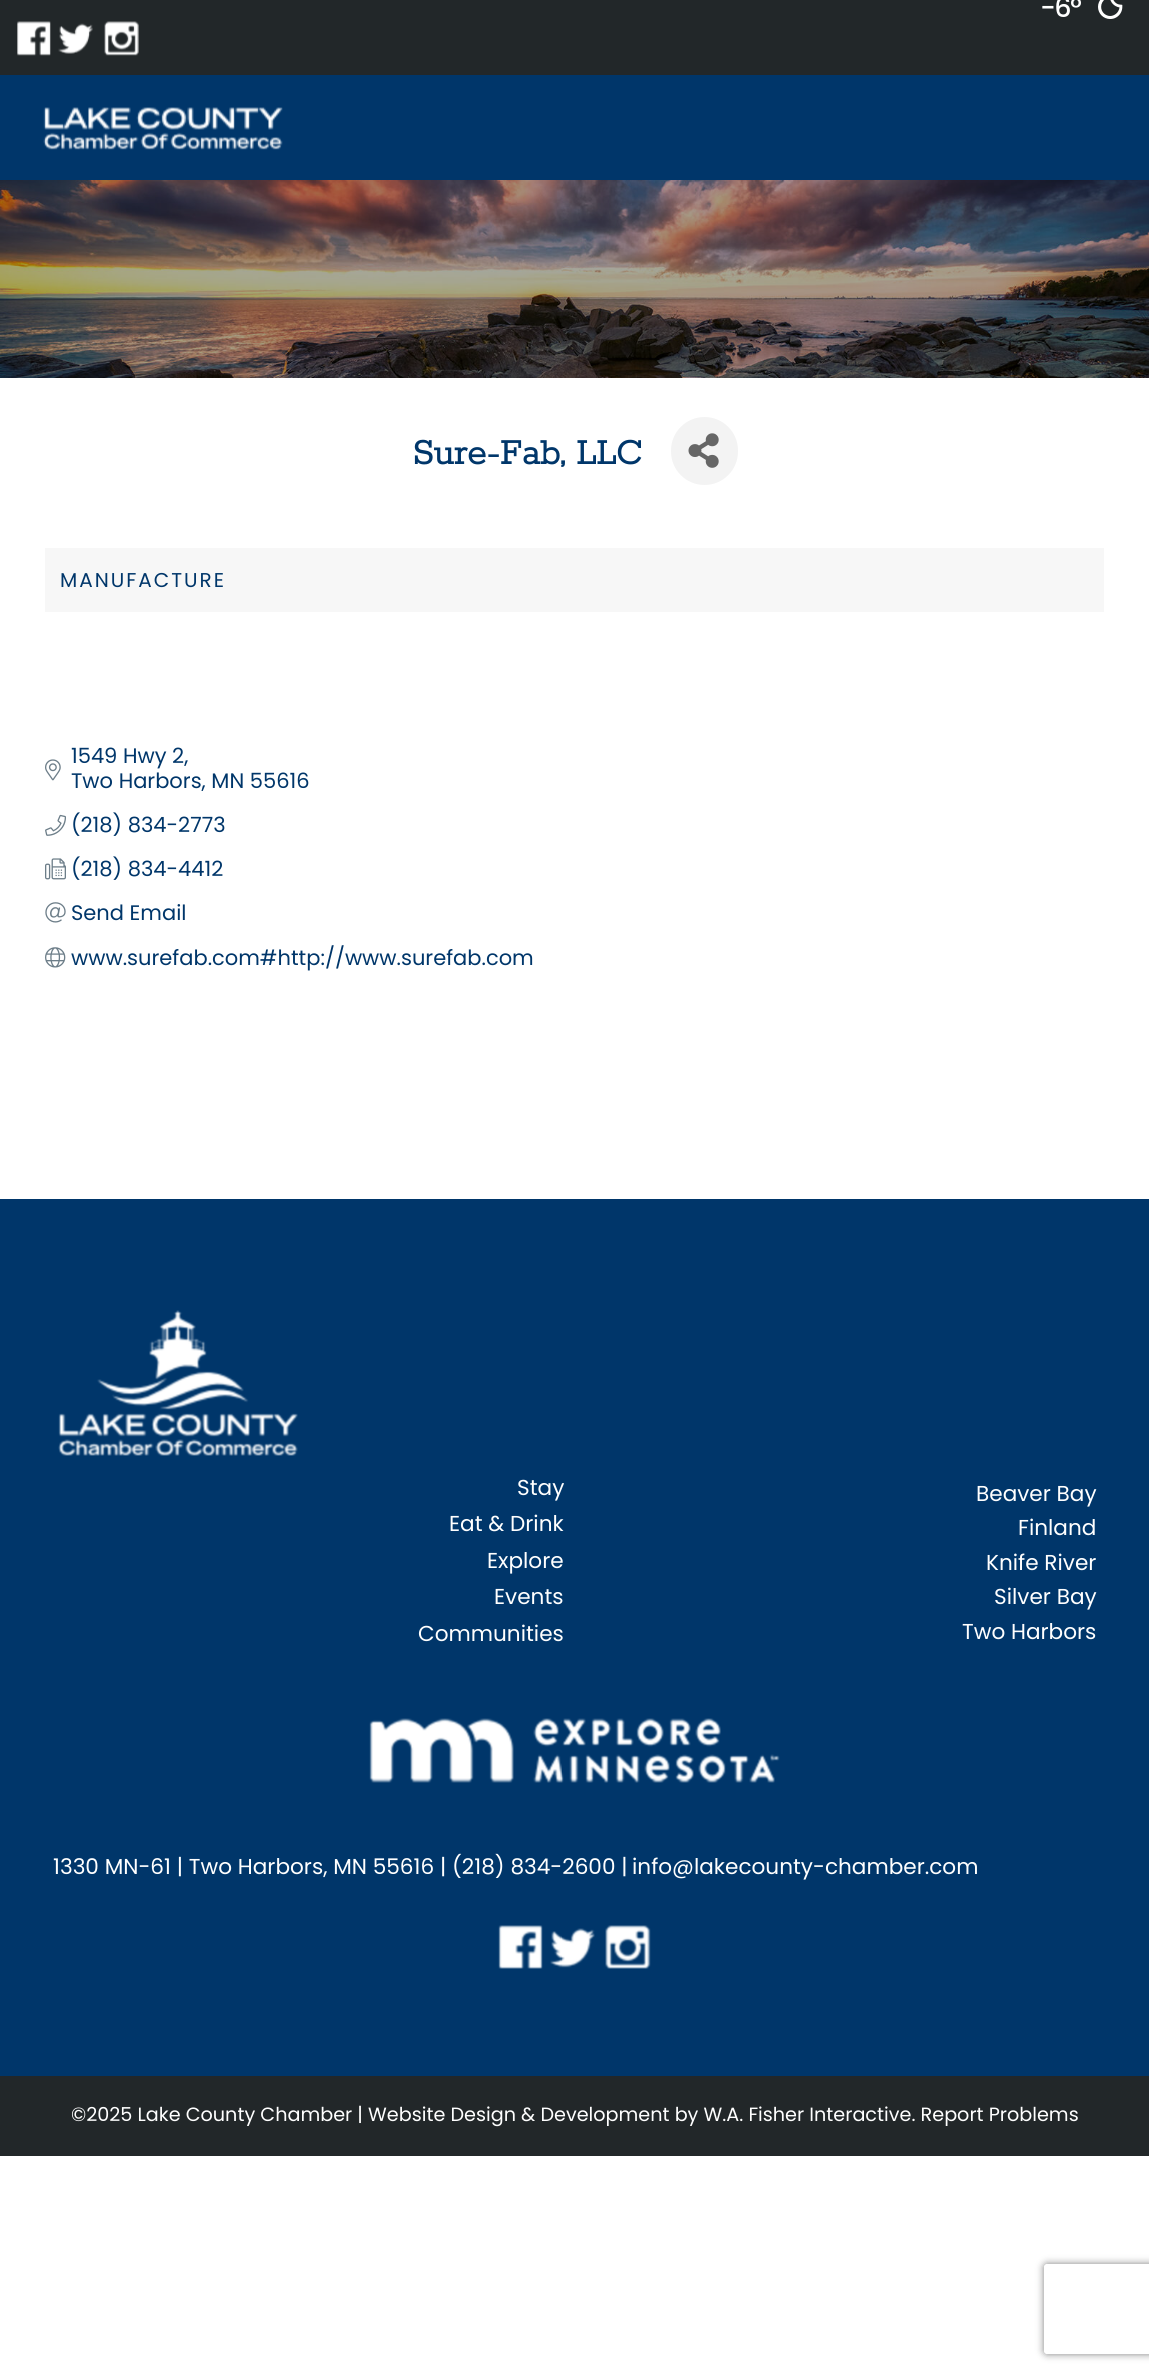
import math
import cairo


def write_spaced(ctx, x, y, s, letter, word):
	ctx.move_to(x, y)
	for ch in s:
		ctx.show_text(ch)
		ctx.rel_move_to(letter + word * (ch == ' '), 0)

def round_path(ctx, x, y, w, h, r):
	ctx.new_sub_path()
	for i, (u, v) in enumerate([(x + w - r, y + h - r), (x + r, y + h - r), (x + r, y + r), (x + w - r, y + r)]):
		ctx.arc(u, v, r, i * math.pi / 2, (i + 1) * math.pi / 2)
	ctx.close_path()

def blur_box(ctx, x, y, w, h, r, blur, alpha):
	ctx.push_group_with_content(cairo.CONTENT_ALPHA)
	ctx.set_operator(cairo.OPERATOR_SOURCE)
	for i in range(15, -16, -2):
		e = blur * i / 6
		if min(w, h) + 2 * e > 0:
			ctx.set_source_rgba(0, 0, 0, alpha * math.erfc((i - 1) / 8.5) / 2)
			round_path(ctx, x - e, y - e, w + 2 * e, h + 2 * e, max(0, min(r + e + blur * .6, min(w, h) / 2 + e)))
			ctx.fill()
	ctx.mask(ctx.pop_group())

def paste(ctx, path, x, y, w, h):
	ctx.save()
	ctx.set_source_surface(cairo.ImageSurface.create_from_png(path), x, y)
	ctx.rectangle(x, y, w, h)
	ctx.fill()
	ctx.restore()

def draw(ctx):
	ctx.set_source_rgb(1, 1, 1)
	ctx.paint()
	ctx.set_source_rgb(0, 0.212, 0.416)
	ctx.rectangle(0, 75, 1149, 105)
	ctx.fill()
	ctx.set_source_rgb(0.133, 0.153, 0.161)
	ctx.rectangle(0, 0, 1149, 75)
	ctx.fill()
	ctx.select_font_face('Poppins Medium')
	ctx.set_font_size(27)
	ctx.set_source_rgb(1, 1, 1)
	write_spaced(ctx, 1040, 17, '-6°', -1.5, 0)
	paste(ctx, 'media/1.png', 1098, 0, 25, 19)
	paste(ctx, 'media/2.png', 17, 21, 34, 35)
	paste(ctx, 'media/3.png', 58, 23, 35, 31)
	paste(ctx, 'media/4.png', 104, 21, 35, 35)
	paste(ctx, 'media/5.png', 43, 107, 240, 43)
	ctx.set_source_rgb(0, 0, 0)
	ctx.rectangle(0, 180, 1149, 198)
	ctx.fill()
	paste(ctx, 'media/6.png', 0, 180, 1149, 198)
	ctx.select_font_face('Rokkitt', cairo.FONT_SLANT_NORMAL, cairo.FONT_WEIGHT_BOLD)
	ctx.set_font_size(39)
	ctx.set_source_rgb(0, 0.212, 0.416)
	ctx.move_to(412, 464)
	ctx.show_text('Sure-Fab, LLC')
	ctx.set_source_rgb(0.953, 0.953, 0.953)
	round_path(ctx, 671, 417, 67, 68, 33.5)
	ctx.fill()
	paste(ctx, 'media/7.png', 688, 433, 31, 35)
	ctx.set_source_rgb(0.965, 0.965, 0.965)
	ctx.rectangle(45, 548, 1059, 64)
	ctx.fill()
	ctx.select_font_face('Poppins')
	ctx.set_font_size(20)
	ctx.set_source_rgb(0, 0.212, 0.416)
	write_spaced(ctx, 60, 587, 'MANUFACTURE', 2, 0)
	paste(ctx, 'media/8.png', 45, 759, 16, 22)
	ctx.set_font_size(21)
	ctx.move_to(71, 763)
	ctx.show_text('1549 Hwy 2,')
	ctx.move_to(71, 788)
	ctx.show_text('Two Harbors, MN 55616')
	paste(ctx, 'media/9.png', 45, 814, 21, 22)
	ctx.move_to(71, 832)
	ctx.show_text('(218) 834-2773')
	paste(ctx, 'media/10.png', 45, 858, 21, 22)
	ctx.move_to(71, 876)
	ctx.show_text('(218) 834-4412')
	paste(ctx, 'media/11.png', 45, 902, 21, 21)
	ctx.move_to(71, 920)
	ctx.show_text('Send Email')
	paste(ctx, 'media/12.png', 45, 947, 21, 21)
	ctx.move_to(71, 965)
	ctx.show_text('www.surefab.com#http://www.surefab.com')
	ctx.rectangle(0, 1199, 1149, 877)
	ctx.fill()
	paste(ctx, 'media/13.png', 58, 1310, 240, 146)
	ctx.set_font_size(21.6)
	ctx.set_source_rgb(1, 1, 1)
	for x, y, s in [
		(517, 1495, 'Stay'),
		(418, 1641, 'Communities'),
		(976, 1501, 'Beaver Bay'),
		(1018, 1535, 'Finland'),
		(986, 1570, 'Knife River'),
		(994, 1604, 'Silver Bay'),
		(962, 1639, 'Two Harbors'),
		(449, 1531, 'Eat & Drink'),
		(487, 1568, 'Explore'),
		(494, 1604, 'Events'),
	]:
		ctx.move_to(x, y)
		ctx.show_text(s)
	paste(ctx, 'media/14.png', 369, 1718, 411, 65)
	ctx.move_to(53, 1874)
	ctx.show_text('1330 MN-61 | Two Harbors, MN 55616 | (218) 834-2600 |')
	ctx.move_to(632, 1874)
	ctx.show_text('info@lakecounty-chamber.com')
	paste(ctx, 'media/15.png', 498, 1925, 45, 44)
	paste(ctx, 'media/16.png', 550, 1928, 45, 40)
	paste(ctx, 'media/17.png', 605, 1925, 46, 44)
	ctx.set_source_rgb(0.133, 0.153, 0.161)
	ctx.rectangle(0, 2076, 1149, 80)
	ctx.fill()
	ctx.set_font_size(19.2)
	ctx.set_source_rgb(1, 1, 1)
	ctx.move_to(71, 2121)
	ctx.show_text('©2025 Lake County Chamber | Website Design & Development by W.A. Fisher Interactive. Report Problems')
	ctx.save()
	ctx.set_fill_rule(cairo.FILL_RULE_EVEN_ODD)
	ctx.new_path()
	ctx.move_to(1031, 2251)
	ctx.line_to(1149, 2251)
	ctx.line_to(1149, 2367)
	ctx.line_to(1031, 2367)
	ctx.close_path()
	ctx.move_to(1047, 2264)
	ctx.line_to(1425, 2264)
	ctx.curve_to(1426.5, 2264, 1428, 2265.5, 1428, 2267)
	ctx.line_to(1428, 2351)
	ctx.curve_to(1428, 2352.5, 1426.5, 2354, 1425, 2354)
	ctx.line_to(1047, 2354)
	ctx.curve_to(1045.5, 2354, 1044, 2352.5, 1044, 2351)
	ctx.line_to(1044, 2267)
	ctx.curve_to(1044, 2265.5, 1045.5, 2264, 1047, 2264)
	ctx.close_path()
	ctx.clip()
	ctx.set_source_rgb(0.502, 0.502, 0.502)
	blur_box(ctx, 1044, 2264, 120, 90, 3, 4, 1)
	ctx.restore()


surface = cairo.ImageSurface(cairo.FORMAT_RGB24, 1149, 2374)
ctx = cairo.Context(surface)
options = cairo.FontOptions()
options.set_hint_metrics(cairo.HINT_METRICS_OFF)
options.set_hint_style(cairo.HINT_STYLE_NONE)
ctx.set_font_options(options)
ctx.set_miter_limit(4)
draw(ctx)
surface.write_to_png('image.png')
